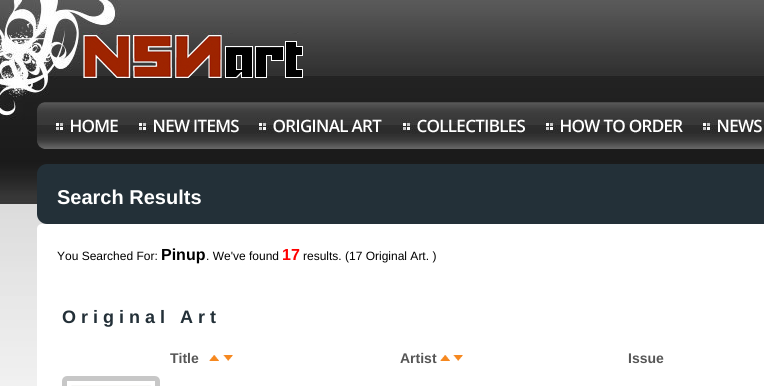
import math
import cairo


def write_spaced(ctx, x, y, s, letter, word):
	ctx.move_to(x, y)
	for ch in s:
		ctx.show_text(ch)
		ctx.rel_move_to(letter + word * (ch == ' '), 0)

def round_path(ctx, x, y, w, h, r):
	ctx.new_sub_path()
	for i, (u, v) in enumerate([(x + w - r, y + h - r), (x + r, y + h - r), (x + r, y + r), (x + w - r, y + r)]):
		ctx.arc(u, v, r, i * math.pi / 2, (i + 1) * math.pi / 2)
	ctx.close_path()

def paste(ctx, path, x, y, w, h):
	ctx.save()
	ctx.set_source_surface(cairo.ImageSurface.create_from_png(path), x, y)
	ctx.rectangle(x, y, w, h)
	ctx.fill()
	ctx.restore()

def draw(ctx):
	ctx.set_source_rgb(1, 1, 1)
	ctx.paint()
	paste(ctx, 'media/1.png', 0, 0, 764, 386)
	paste(ctx, 'media/2.png', 0, 0, 303, 120)
	paste(ctx, 'media/3.png', 37, 102, 727, 47)
	paste(ctx, 'media/4.png', 53, 118, 65, 16)
	paste(ctx, 'media/5.png', 136, 118, 103, 16)
	paste(ctx, 'media/6.png', 256, 118, 126, 16)
	paste(ctx, 'media/7.png', 400, 118, 125, 16)
	paste(ctx, 'media/8.png', 543, 118, 140, 16)
	paste(ctx, 'media/9.png', 700, 118, 62, 16)
	ctx.set_source_rgb(0.137, 0.188, 0.22)
	round_path(ctx, 37, 164, 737, 60, 10)
	ctx.fill()
	ctx.select_font_face('Liberation Sans', cairo.FONT_SLANT_NORMAL, cairo.FONT_WEIGHT_BOLD)
	ctx.set_font_size(20)
	ctx.set_source_rgb(1, 1, 1)
	ctx.move_to(57, 204)
	ctx.show_text('Search Results')
	ctx.new_path()
	ctx.move_to(42, 224)
	ctx.line_to(764, 224)
	ctx.curve_to(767, 224, 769, 226, 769, 229)
	ctx.line_to(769, 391)
	ctx.line_to(37, 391)
	ctx.line_to(37, 229)
	ctx.curve_to(37, 226, 39, 224, 42, 224)
	ctx.close_path()
	ctx.fill()
	ctx.select_font_face('Liberation Sans')
	ctx.set_font_size(12)
	ctx.set_source_rgb(0, 0, 0)
	ctx.move_to(57, 260)
	ctx.show_text('You Searched For:')
	ctx.select_font_face('Liberation Sans', cairo.FONT_SLANT_NORMAL, cairo.FONT_WEIGHT_BOLD)
	ctx.set_font_size(16)
	ctx.move_to(161, 260)
	ctx.show_text('Pinup')
	ctx.select_font_face('Liberation Sans')
	ctx.set_font_size(12)
	ctx.move_to(206, 260)
	ctx.show_text('. We\'ve found')
	ctx.select_font_face('Liberation Sans', cairo.FONT_SLANT_NORMAL, cairo.FONT_WEIGHT_BOLD)
	ctx.set_font_size(16)
	ctx.set_source_rgb(1, 0, 0)
	ctx.move_to(282, 260)
	ctx.show_text('17')
	ctx.select_font_face('Liberation Sans')
	ctx.set_font_size(12)
	ctx.set_source_rgb(0, 0, 0)
	ctx.move_to(303, 260)
	ctx.show_text('results. (17 Original Art. )')
	ctx.select_font_face('Liberation Sans', cairo.FONT_SLANT_NORMAL, cairo.FONT_WEIGHT_BOLD)
	ctx.set_font_size(18)
	ctx.set_source_rgb(0.137, 0.188, 0.22)
	write_spaced(ctx, 62, 323, 'Original Art', 5, 0)
	ctx.set_font_size(14)
	ctx.set_source_rgb(0.337, 0.337, 0.337)
	ctx.move_to(170, 363)
	ctx.show_text('Title')
	paste(ctx, 'media/10.png', 209, 355, 10, 6)
	paste(ctx, 'media/11.png', 223, 355, 10, 6)
	ctx.move_to(400, 363)
	ctx.show_text('Artist')
	paste(ctx, 'media/12.png', 440, 355, 10, 6)
	paste(ctx, 'media/13.png', 453, 355, 10, 6)
	ctx.move_to(628, 363)
	ctx.show_text('Issue')
	round_path(ctx, 64.5, 378.5, 93, 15, 2.5)
	ctx.set_source_rgb(0.78, 0.78, 0.78)
	ctx.set_line_width(5)
	ctx.stroke()
	paste(ctx, 'media/14.png', 71, 385, 80, 1)


surface = cairo.ImageSurface(cairo.FORMAT_RGB24, 764, 386)
ctx = cairo.Context(surface)
options = cairo.FontOptions()
options.set_hint_metrics(cairo.HINT_METRICS_OFF)
options.set_hint_style(cairo.HINT_STYLE_NONE)
ctx.set_font_options(options)
ctx.set_miter_limit(4)
draw(ctx)
surface.write_to_png('image.png')
